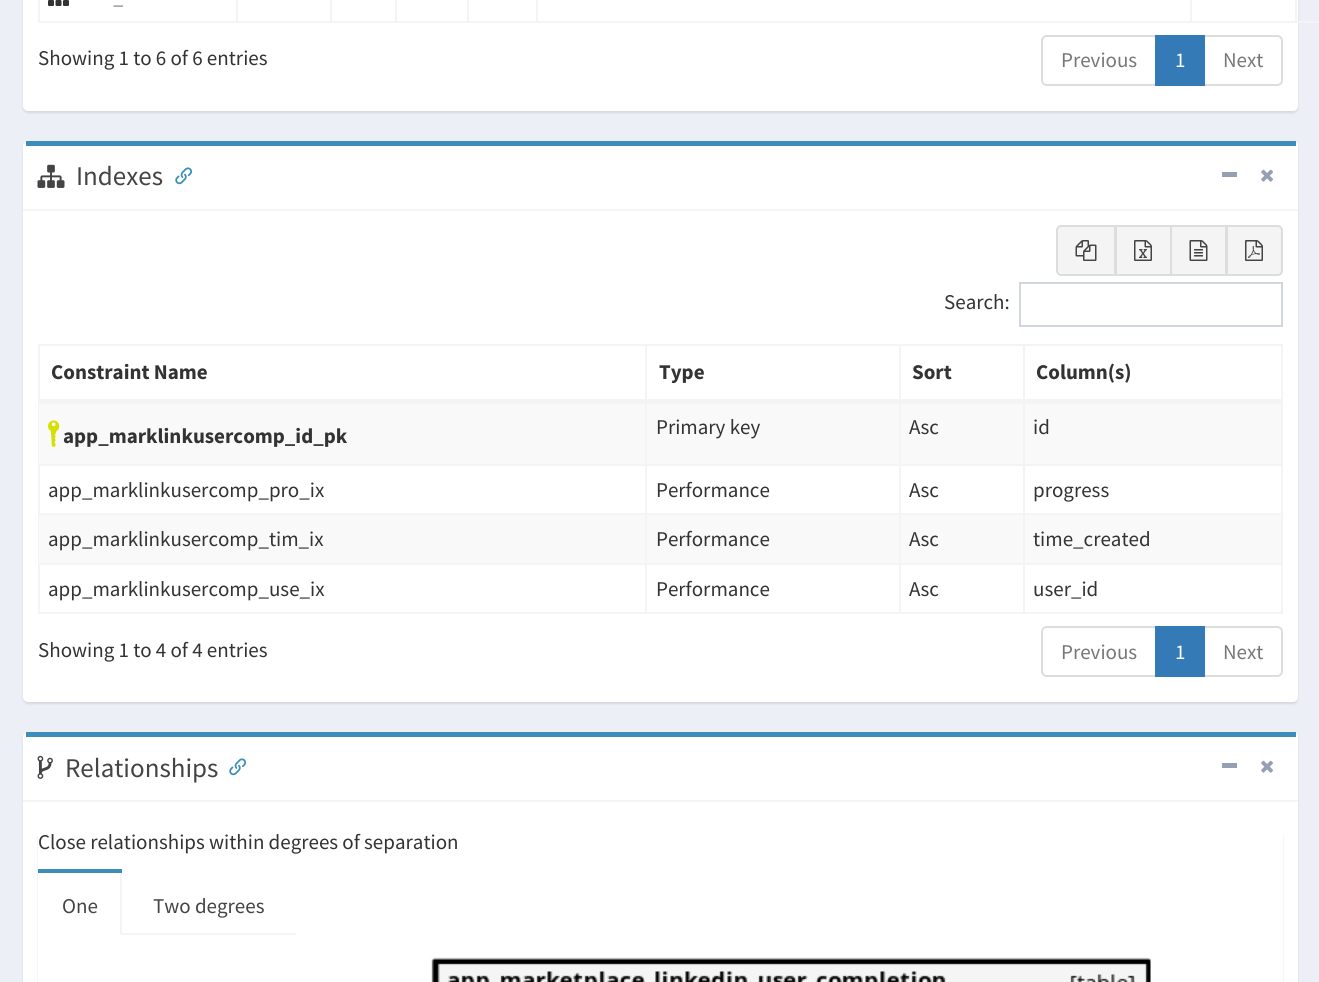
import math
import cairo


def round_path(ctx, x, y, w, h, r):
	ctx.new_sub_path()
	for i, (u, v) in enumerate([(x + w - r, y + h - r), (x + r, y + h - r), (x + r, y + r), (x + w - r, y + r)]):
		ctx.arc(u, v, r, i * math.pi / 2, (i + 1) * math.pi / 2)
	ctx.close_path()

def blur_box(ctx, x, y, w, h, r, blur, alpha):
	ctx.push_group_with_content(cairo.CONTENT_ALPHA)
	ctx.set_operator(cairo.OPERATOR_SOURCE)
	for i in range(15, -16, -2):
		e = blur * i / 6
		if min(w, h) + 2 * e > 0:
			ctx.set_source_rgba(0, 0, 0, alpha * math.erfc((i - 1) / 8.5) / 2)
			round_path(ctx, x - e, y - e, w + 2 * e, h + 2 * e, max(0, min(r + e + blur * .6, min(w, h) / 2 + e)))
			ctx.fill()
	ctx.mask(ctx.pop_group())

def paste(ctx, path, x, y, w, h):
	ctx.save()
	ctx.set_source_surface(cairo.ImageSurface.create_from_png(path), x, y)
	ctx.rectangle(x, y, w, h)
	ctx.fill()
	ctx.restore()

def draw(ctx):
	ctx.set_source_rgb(0.925, 0.941, 0.961)
	ctx.paint()
	ctx.set_source_rgb(0, 0, 0)
	blur_box(ctx, 23, -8, 1275, 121, 5, 1, 0.1)
	ctx.set_source_rgb(1, 1, 1)
	round_path(ctx, 23, -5, 1275, 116, 5)
	ctx.fill()
	ctx.rectangle(39, -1, 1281, 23)
	ctx.set_source_rgb(0.957, 0.957, 0.957)
	ctx.stroke()
	ctx.rectangle(236, 0, 2, 21)
	ctx.fill()
	paste(ctx, 'media/1.png', 48, 0, 21, 6)
	ctx.select_font_face('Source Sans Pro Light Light', cairo.FONT_SLANT_ITALIC)
	ctx.set_font_size(21)
	ctx.set_source_rgb(0.2, 0.2, 0.2)
	ctx.move_to(114, 4)
	ctx.show_text('_')
	ctx.set_source_rgb(0.957, 0.957, 0.957)
	ctx.rectangle(330, 0, 2, 21)
	ctx.rectangle(395, 0, 2, 21)
	ctx.rectangle(467, 0, 2, 21)
	ctx.rectangle(536, 0, 2, 21)
	ctx.rectangle(1190, 0, 2, 21)
	ctx.rectangle(1295, 0, 2, 21)
	ctx.fill()
	ctx.select_font_face('Source Sans Pro')
	ctx.set_source_rgb(0.2, 0.2, 0.2)
	ctx.move_to(38, 65)
	ctx.show_text('Showing 1 to 6 of 6 entries')
	ctx.new_path()
	ctx.move_to(1047, 36)
	ctx.line_to(1156, 36)
	ctx.line_to(1156, 85)
	ctx.line_to(1047, 85)
	ctx.curve_to(1044, 85, 1042, 83, 1042, 80)
	ctx.line_to(1042, 41)
	ctx.curve_to(1042, 38, 1044, 36, 1047, 36)
	ctx.close_path()
	ctx.set_source_rgb(0.867, 0.867, 0.867)
	ctx.stroke()
	ctx.set_source_rgb(0.467, 0.467, 0.467)
	ctx.move_to(1061, 67)
	ctx.show_text('Previous')
	ctx.new_path()
	ctx.move_to(1204, 36)
	ctx.line_to(1277, 36)
	ctx.curve_to(1280, 36, 1282, 38, 1282, 41)
	ctx.line_to(1282, 80)
	ctx.curve_to(1282, 83, 1280, 85, 1277, 85)
	ctx.line_to(1204, 85)
	ctx.close_path()
	ctx.set_source_rgb(0.867, 0.867, 0.867)
	ctx.stroke()
	ctx.set_source_rgb(0.2, 0.478, 0.718)
	ctx.rectangle(1155, 35, 50, 51)
	ctx.fill()
	ctx.set_source_rgb(1, 1, 1)
	ctx.move_to(1175, 67)
	ctx.show_text('1')
	ctx.set_source_rgb(0.467, 0.467, 0.467)
	ctx.move_to(1223, 67)
	ctx.show_text('Next')
	ctx.set_source_rgb(0, 0, 0)
	blur_box(ctx, 23, 143, 1275, 561, 5, 1, 0.1)
	ctx.set_source_rgb(1, 1, 1)
	round_path(ctx, 23, 141, 1275, 561, 5)
	ctx.fill()
	ctx.set_source_rgb(0.235, 0.553, 0.737)
	ctx.rectangle(26, 141, 1270, 5)
	ctx.fill()
	ctx.set_source_rgb(0.957, 0.957, 0.957)
	ctx.rectangle(23, 209, 1275, 2)
	ctx.fill()
	paste(ctx, 'media/2.png', 37, 164, 28, 24)
	ctx.set_font_size(27)
	ctx.set_source_rgb(0.267, 0.267, 0.267)
	ctx.move_to(76, 185)
	ctx.show_text('Indexes')
	paste(ctx, 'media/3.png', 175, 167, 18, 18)
	ctx.set_source_rgb(0.592, 0.627, 0.702)
	ctx.rectangle(1222, 172, 15, 5)
	ctx.fill()
	paste(ctx, 'media/4.png', 1261, 169, 12, 13)
	ctx.set_source_rgb(0.957, 0.957, 0.957)
	ctx.new_path()
	ctx.move_to(1061, 226)
	ctx.line_to(1115, 226)
	ctx.line_to(1115, 275)
	ctx.line_to(1061, 275)
	ctx.curve_to(1059, 275, 1057, 273, 1057, 271)
	ctx.line_to(1057, 230)
	ctx.curve_to(1057, 228, 1059, 226, 1061, 226)
	ctx.close_path()
	ctx.fill_preserve()
	ctx.set_source_rgb(0.867, 0.867, 0.867)
	ctx.stroke()
	paste(ctx, 'media/5.png', 1075, 240, 22, 21)
	ctx.set_source_rgb(0.957, 0.957, 0.957)
	ctx.rectangle(1116, 226, 55, 49)
	ctx.fill_preserve()
	ctx.set_source_rgb(0.867, 0.867, 0.867)
	ctx.stroke()
	paste(ctx, 'media/6.png', 1134, 240, 18, 21)
	ctx.set_source_rgb(0.957, 0.957, 0.957)
	ctx.rectangle(1171, 226, 55, 49)
	ctx.fill_preserve()
	ctx.set_source_rgb(0.867, 0.867, 0.867)
	ctx.stroke()
	paste(ctx, 'media/7.png', 1189, 240, 19, 21)
	ctx.set_source_rgb(0.957, 0.957, 0.957)
	ctx.new_path()
	ctx.move_to(1227, 226)
	ctx.line_to(1278, 226)
	ctx.curve_to(1280, 226, 1282, 228, 1282, 230)
	ctx.line_to(1282, 271)
	ctx.curve_to(1282, 273, 1280, 275, 1278, 275)
	ctx.line_to(1227, 275)
	ctx.close_path()
	ctx.fill_preserve()
	ctx.set_source_rgb(0.867, 0.867, 0.867)
	ctx.stroke()
	paste(ctx, 'media/8.png', 1245, 240, 18, 21)
	ctx.set_font_size(21)
	ctx.set_source_rgb(0.2, 0.2, 0.2)
	ctx.move_to(944, 309)
	ctx.show_text('Search:')
	ctx.rectangle(1020, 283, 262, 43)
	ctx.set_source_rgb(0.824, 0.839, 0.871)
	ctx.stroke()
	ctx.rectangle(39, 345, 1243, 268)
	ctx.set_source_rgb(0.957, 0.957, 0.957)
	ctx.stroke()
	ctx.rectangle(645, 345, 2, 57)
	ctx.fill()
	ctx.rectangle(39, 399, 608, 5)
	ctx.fill()
	ctx.select_font_face('Source Sans Pro', cairo.FONT_SLANT_NORMAL, cairo.FONT_WEIGHT_BOLD)
	ctx.set_source_rgb(0.2, 0.2, 0.2)
	ctx.move_to(51, 379)
	ctx.show_text('Constraint Name')
	ctx.set_source_rgb(0.957, 0.957, 0.957)
	ctx.rectangle(899, 345, 2, 57)
	ctx.fill()
	ctx.rectangle(647, 399, 253, 5)
	ctx.fill()
	ctx.set_source_rgb(0.2, 0.2, 0.2)
	ctx.move_to(659, 379)
	ctx.show_text('Type')
	ctx.set_source_rgb(0.957, 0.957, 0.957)
	ctx.rectangle(1023, 345, 2, 57)
	ctx.fill()
	ctx.rectangle(900, 399, 381, 3)
	ctx.fill()
	ctx.set_source_rgb(0.2, 0.2, 0.2)
	ctx.move_to(912, 379)
	ctx.show_text('Sort')
	ctx.move_to(1036, 379)
	ctx.show_text('Column(s)')
	ctx.set_source_rgb(0.976, 0.976, 0.976)
	ctx.rectangle(39, 404, 1242, 60)
	ctx.fill()
	ctx.set_source_rgb(0.957, 0.957, 0.957)
	ctx.rectangle(645, 402, 2, 62)
	ctx.fill()
	paste(ctx, 'media/9.png', 48, 420, 12, 27)
	ctx.set_source_rgb(0.2, 0.2, 0.2)
	ctx.move_to(63, 443)
	ctx.show_text('app_marklinkusercomp_id_pk')
	ctx.set_source_rgb(0.957, 0.957, 0.957)
	ctx.rectangle(899, 402, 2, 62)
	ctx.fill()
	ctx.select_font_face('Source Sans Pro')
	ctx.set_source_rgb(0.2, 0.2, 0.2)
	ctx.move_to(656, 434)
	ctx.show_text('Primary key')
	ctx.set_source_rgb(0.957, 0.957, 0.957)
	ctx.rectangle(900, 402, 381, 2)
	ctx.fill()
	ctx.rectangle(1023, 402, 2, 62)
	ctx.fill()
	ctx.set_source_rgb(0.2, 0.2, 0.2)
	ctx.move_to(909, 434)
	ctx.show_text('Asc')
	ctx.move_to(1033, 434)
	ctx.show_text('id')
	ctx.set_source_rgb(0.957, 0.957, 0.957)
	ctx.rectangle(39, 464, 861, 2)
	ctx.fill()
	ctx.rectangle(645, 464, 2, 49)
	ctx.fill()
	ctx.set_source_rgb(0.2, 0.2, 0.2)
	ctx.move_to(48, 497)
	ctx.show_text('app_marklinkusercomp_pro_ix')
	ctx.set_source_rgb(0.957, 0.957, 0.957)
	ctx.rectangle(899, 464, 2, 49)
	ctx.fill()
	ctx.set_source_rgb(0.2, 0.2, 0.2)
	ctx.move_to(656, 497)
	ctx.show_text('Performance')
	ctx.set_source_rgb(0.957, 0.957, 0.957)
	ctx.rectangle(900, 464, 381, 2)
	ctx.fill()
	ctx.rectangle(1023, 464, 2, 49)
	ctx.fill()
	ctx.set_source_rgb(0.2, 0.2, 0.2)
	ctx.move_to(909, 497)
	ctx.show_text('Asc')
	ctx.move_to(1033, 497)
	ctx.show_text('progress')
	ctx.set_source_rgb(0.976, 0.976, 0.976)
	ctx.rectangle(39, 515, 1242, 48)
	ctx.fill()
	ctx.set_source_rgb(0.957, 0.957, 0.957)
	ctx.rectangle(39, 513, 861, 2)
	ctx.rectangle(645, 513, 2, 50)
	ctx.fill()
	ctx.set_source_rgb(0.2, 0.2, 0.2)
	ctx.move_to(48, 546)
	ctx.show_text('app_marklinkusercomp_tim_ix')
	ctx.set_source_rgb(0.957, 0.957, 0.957)
	ctx.rectangle(899, 513, 2, 50)
	ctx.fill()
	ctx.set_source_rgb(0.2, 0.2, 0.2)
	ctx.move_to(656, 546)
	ctx.show_text('Performance')
	ctx.set_source_rgb(0.957, 0.957, 0.957)
	ctx.rectangle(900, 513, 381, 2)
	ctx.fill()
	ctx.rectangle(1023, 513, 2, 50)
	ctx.fill()
	ctx.set_source_rgb(0.2, 0.2, 0.2)
	ctx.move_to(909, 546)
	ctx.show_text('Asc')
	ctx.move_to(1033, 546)
	ctx.show_text('time_created')
	ctx.set_source_rgb(0.957, 0.957, 0.957)
	ctx.rectangle(39, 563, 861, 2)
	ctx.fill()
	ctx.rectangle(645, 563, 2, 49)
	ctx.fill()
	ctx.set_source_rgb(0.2, 0.2, 0.2)
	ctx.move_to(48, 596)
	ctx.show_text('app_marklinkusercomp_use_ix')
	ctx.set_source_rgb(0.957, 0.957, 0.957)
	ctx.rectangle(899, 563, 2, 49)
	ctx.fill()
	ctx.set_source_rgb(0.2, 0.2, 0.2)
	ctx.move_to(656, 596)
	ctx.show_text('Performance')
	ctx.set_source_rgb(0.957, 0.957, 0.957)
	ctx.rectangle(900, 563, 381, 2)
	ctx.fill()
	ctx.rectangle(1023, 563, 2, 49)
	ctx.fill()
	ctx.set_source_rgb(0.2, 0.2, 0.2)
	for x, y, s in [
		(909, 596, 'Asc'),
		(1033, 596, 'user_id'),
		(38, 657, 'Showing 1 to 4 of 4 entries'),
	]:
		ctx.move_to(x, y)
		ctx.show_text(s)
	ctx.new_path()
	ctx.move_to(1047, 627)
	ctx.line_to(1156, 627)
	ctx.line_to(1156, 676)
	ctx.line_to(1047, 676)
	ctx.curve_to(1044, 676, 1042, 674, 1042, 671)
	ctx.line_to(1042, 632)
	ctx.curve_to(1042, 629, 1044, 627, 1047, 627)
	ctx.close_path()
	ctx.set_source_rgb(0.867, 0.867, 0.867)
	ctx.stroke()
	ctx.set_source_rgb(0.467, 0.467, 0.467)
	ctx.move_to(1061, 659)
	ctx.show_text('Previous')
	ctx.new_path()
	ctx.move_to(1204, 627)
	ctx.line_to(1277, 627)
	ctx.curve_to(1280, 627, 1282, 629, 1282, 632)
	ctx.line_to(1282, 671)
	ctx.curve_to(1282, 674, 1280, 676, 1277, 676)
	ctx.line_to(1204, 676)
	ctx.close_path()
	ctx.set_source_rgb(0.867, 0.867, 0.867)
	ctx.stroke()
	ctx.set_source_rgb(0.2, 0.478, 0.718)
	ctx.rectangle(1155, 626, 50, 51)
	ctx.fill()
	ctx.set_source_rgb(1, 1, 1)
	ctx.move_to(1175, 659)
	ctx.show_text('1')
	ctx.set_source_rgb(0.467, 0.467, 0.467)
	ctx.move_to(1223, 659)
	ctx.show_text('Next')
	ctx.set_source_rgb(0, 0, 0)
	blur_box(ctx, 23, 734, 1275, 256, 5, 1, 0.1)
	ctx.set_source_rgb(1, 1, 1)
	round_path(ctx, 23, 732, 1275, 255, 5)
	ctx.fill()
	ctx.set_source_rgb(0.235, 0.553, 0.737)
	ctx.rectangle(26, 732, 1270, 5)
	ctx.fill()
	ctx.set_source_rgb(0.957, 0.957, 0.957)
	ctx.rectangle(23, 800, 1275, 2)
	ctx.fill()
	paste(ctx, 'media/10.png', 37, 755, 16, 24)
	ctx.set_font_size(27)
	ctx.set_source_rgb(0.267, 0.267, 0.267)
	ctx.move_to(65, 777)
	ctx.show_text('Relationships')
	paste(ctx, 'media/3.png', 229, 758, 18, 18)
	ctx.set_source_rgb(0.592, 0.627, 0.702)
	ctx.rectangle(1222, 763, 15, 5)
	ctx.fill()
	paste(ctx, 'media/4.png', 1261, 760, 12, 13)
	ctx.set_source_rgb(0, 0, 0)
	blur_box(ctx, 38, 833, 1245, 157, 5, 1, 0.1)
	ctx.set_source_rgb(1, 1, 1)
	round_path(ctx, 38, 831, 1245, 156, 5)
	ctx.fill()
	ctx.set_font_size(21)
	ctx.set_source_rgb(0.2, 0.2, 0.2)
	ctx.move_to(38, 849)
	ctx.show_text('Close relationships within degrees of separation')
	ctx.set_source_rgb(0.957, 0.957, 0.957)
	ctx.rectangle(122, 933, 174, 2)
	ctx.fill()
	ctx.set_source_rgb(0.235, 0.553, 0.737)
	ctx.rectangle(38, 869, 84, 4)
	ctx.fill()
	ctx.set_source_rgb(0.957, 0.957, 0.957)
	ctx.new_path()
	ctx.move_to(122, 873)
	ctx.line_to(122, 936)
	ctx.line_to(120, 934)
	ctx.line_to(120, 874)
	ctx.close_path()
	ctx.fill()
	ctx.set_source_rgb(0.267, 0.267, 0.267)
	ctx.move_to(62, 913)
	ctx.show_text('One')
	ctx.move_to(153, 913)
	ctx.show_text('Two degrees')
	ctx.set_source_rgb(1, 1, 1)
	ctx.rectangle(121, 935, 1, 1)
	ctx.fill()
	paste(ctx, 'media/11.png', 431, 957, 720, 25)


surface = cairo.ImageSurface(cairo.FORMAT_RGB24, 1319, 982)
ctx = cairo.Context(surface)
options = cairo.FontOptions()
options.set_hint_metrics(cairo.HINT_METRICS_OFF)
options.set_hint_style(cairo.HINT_STYLE_NONE)
ctx.set_font_options(options)
ctx.set_miter_limit(4)
draw(ctx)
surface.write_to_png('image.png')
